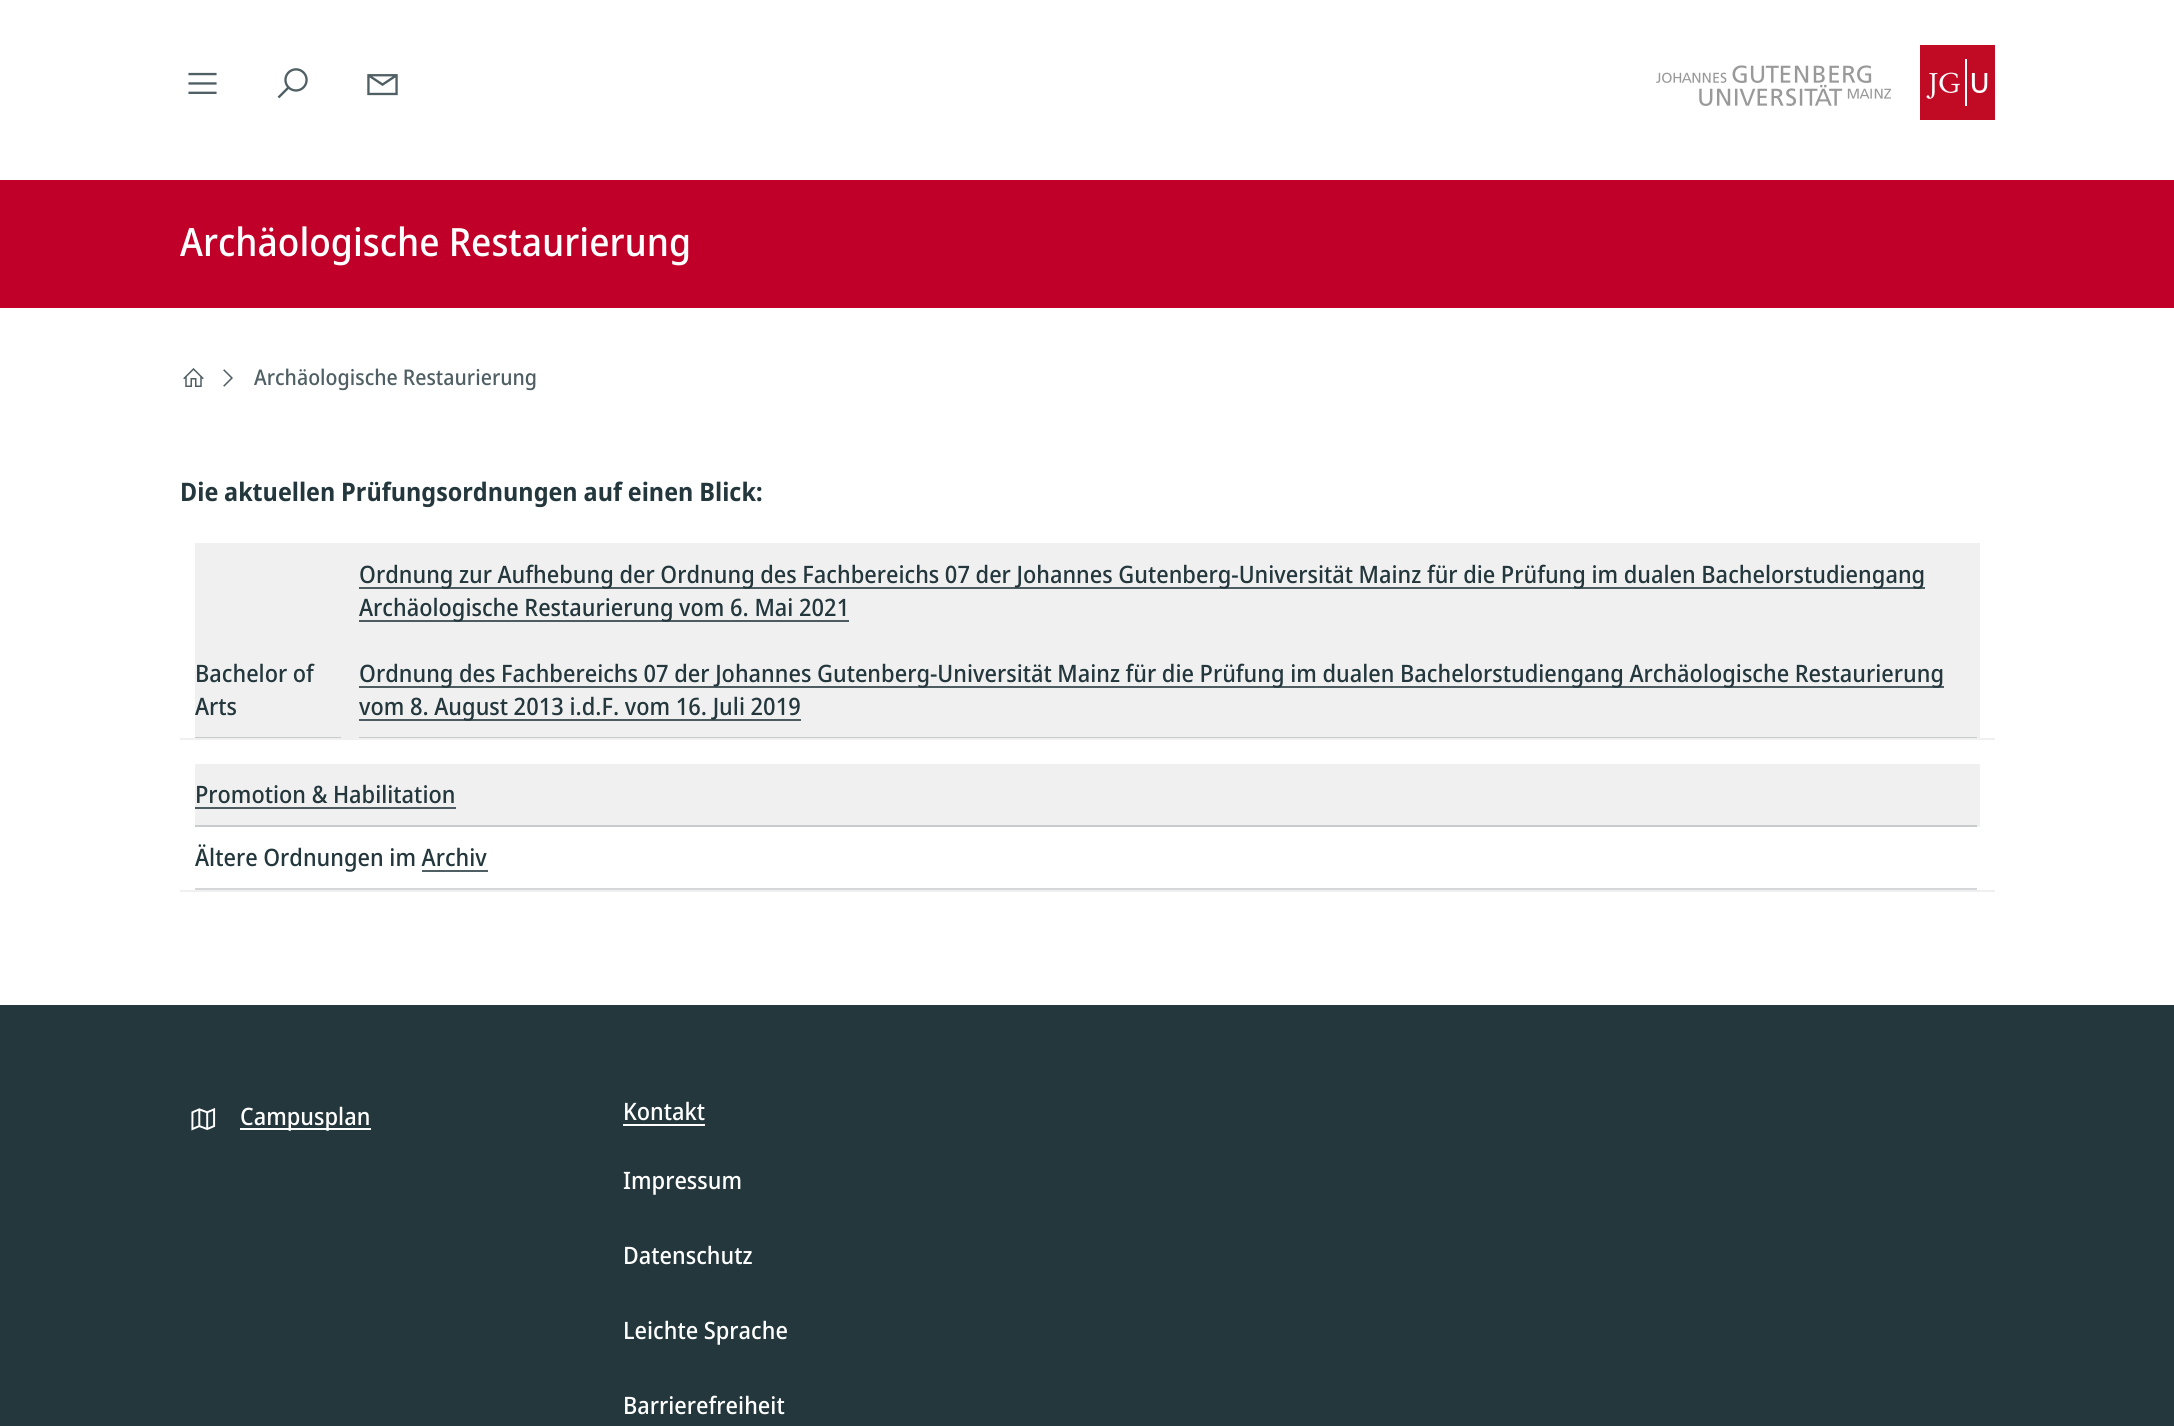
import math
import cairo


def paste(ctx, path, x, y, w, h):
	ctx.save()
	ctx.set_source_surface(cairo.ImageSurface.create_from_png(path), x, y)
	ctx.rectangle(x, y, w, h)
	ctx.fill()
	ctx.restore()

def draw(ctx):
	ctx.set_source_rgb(1, 1, 1)
	ctx.paint()
	paste(ctx, 'media/1.png', 188, 72, 29, 22)
	paste(ctx, 'media/2.png', 277, 68, 31, 31)
	paste(ctx, 'media/3.png', 367, 74, 31, 22)
	paste(ctx, 'media/4.png', 1656, 45, 339, 75)
	paste(ctx, 'media/5.png', 1926, 72, 62, 27)
	ctx.set_source_rgb(0.757, 0, 0.165)
	ctx.rectangle(0, 180, 2174, 128)
	ctx.fill()
	ctx.select_font_face('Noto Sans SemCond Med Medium')
	ctx.set_font_size(39)
	ctx.set_source_rgb(1, 1, 1)
	ctx.move_to(180, 256)
	ctx.show_text('Archäologische Restaurierung')
	paste(ctx, 'media/6.png', 183, 368, 21, 19)
	paste(ctx, 'media/7.png', 223, 369, 10, 18)
	ctx.set_font_size(21.6)
	ctx.set_source_rgb(0.31, 0.373, 0.388)
	ctx.move_to(254, 385)
	ctx.show_text('Archäologische Restaurierung')
	ctx.select_font_face('Noto Sans', cairo.FONT_SLANT_NORMAL, cairo.FONT_WEIGHT_BOLD)
	ctx.set_font_size(25.5)
	ctx.set_source_rgb(0.137, 0.216, 0.235)
	ctx.move_to(180, 501)
	ctx.show_text('Die aktuellen Prüfungsordnungen auf einen Blick:')
	ctx.set_source_rgb(0.941, 0.941, 0.941)
	ctx.rectangle(180, 738, 1815, 2)
	ctx.fill()
	ctx.rectangle(195, 543, 1785, 195)
	ctx.fill()
	ctx.select_font_face('Noto Sans SemCond Med Medium')
	ctx.set_font_size(24)
	ctx.set_source_rgb(0.137, 0.216, 0.235)
	ctx.move_to(195, 682)
	ctx.show_text('Bachelor of')
	ctx.move_to(195, 715)
	ctx.show_text('Arts')
	ctx.set_source_rgb(0.78, 0.796, 0.8)
	ctx.rectangle(195, 737, 146, 1)
	ctx.fill()
	ctx.set_source_rgb(0.298, 0.361, 0.376)
	ctx.rectangle(359, 587, 1566, 2)
	ctx.fill()
	ctx.set_source_rgb(0.137, 0.216, 0.235)
	ctx.move_to(359, 583)
	ctx.show_text('Ordnung zur Aufhebung der Ordnung des Fachbereichs 07 der Johannes Gutenberg-Universität Mainz für die Prüfung im dualen Bachelorstudiengang')
	ctx.set_source_rgb(0.298, 0.361, 0.376)
	ctx.rectangle(359, 620, 490, 2)
	ctx.fill()
	ctx.set_source_rgb(0.137, 0.216, 0.235)
	ctx.move_to(359, 616)
	ctx.show_text('Archäologische Restaurierung vom 6. Mai 2021')
	ctx.set_source_rgb(0.298, 0.361, 0.376)
	ctx.rectangle(359, 686, 1585, 2)
	ctx.fill()
	ctx.set_source_rgb(0.137, 0.216, 0.235)
	ctx.move_to(359, 682)
	ctx.show_text('Ordnung des Fachbereichs 07 der Johannes Gutenberg-Universität Mainz für die Prüfung im dualen Bachelorstudiengang Archäologische Restaurierung')
	ctx.set_source_rgb(0.298, 0.361, 0.376)
	ctx.rectangle(359, 719, 442, 2)
	ctx.fill()
	ctx.set_source_rgb(0.137, 0.216, 0.235)
	ctx.move_to(359, 715)
	ctx.show_text('vom 8. August 2013 i.d.F. vom 16. Juli 2019')
	ctx.set_source_rgb(0.78, 0.796, 0.8)
	ctx.rectangle(359, 737, 1618, 1)
	ctx.fill()
	ctx.set_source_rgb(0.941, 0.941, 0.941)
	ctx.rectangle(180, 890, 1815, 2)
	ctx.rectangle(195, 764, 1785, 63)
	ctx.fill()
	ctx.set_source_rgb(0.137, 0.216, 0.235)
	ctx.move_to(195, 803)
	ctx.show_text('Promotion & Habilitation')
	ctx.set_source_rgb(0.298, 0.361, 0.376)
	ctx.rectangle(195, 807, 261, 2)
	ctx.fill()
	ctx.set_source_rgb(0.78, 0.796, 0.8)
	ctx.rectangle(195, 825, 1782, 2)
	ctx.fill()
	ctx.set_source_rgb(0.137, 0.216, 0.235)
	ctx.move_to(195, 866)
	ctx.show_text('Ältere Ordnungen im Archiv')
	ctx.set_source_rgb(0.31, 0.373, 0.388)
	ctx.rectangle(422, 870, 66, 2)
	ctx.fill()
	ctx.set_source_rgb(0.827, 0.843, 0.847)
	ctx.rectangle(195, 888, 1782, 2)
	ctx.fill()
	ctx.set_source_rgb(0.137, 0.216, 0.235)
	ctx.rectangle(0, 1005, 2174, 421)
	ctx.fill()
	paste(ctx, 'media/8.png', 191, 1108, 25, 23)
	ctx.set_source_rgb(1, 1, 1)
	ctx.rectangle(240, 1128, 131, 2)
	ctx.fill()
	ctx.move_to(240, 1125)
	ctx.show_text('Campusplan')
	ctx.move_to(623, 1120)
	ctx.show_text('Kontakt')
	ctx.rectangle(623, 1124, 82, 2)
	ctx.fill()
	for x, y, s in [
		(623, 1189, 'Impressum'),
		(623, 1264, 'Datenschutz'),
		(623, 1339, 'Leichte Sprache'),
		(623, 1414, 'Barrierefreiheit'),
	]:
		ctx.move_to(x, y)
		ctx.show_text(s)


surface = cairo.ImageSurface(cairo.FORMAT_RGB24, 2174, 1426)
ctx = cairo.Context(surface)
options = cairo.FontOptions()
options.set_hint_metrics(cairo.HINT_METRICS_OFF)
options.set_hint_style(cairo.HINT_STYLE_NONE)
ctx.set_font_options(options)
ctx.set_miter_limit(4)
draw(ctx)
surface.write_to_png('image.png')
